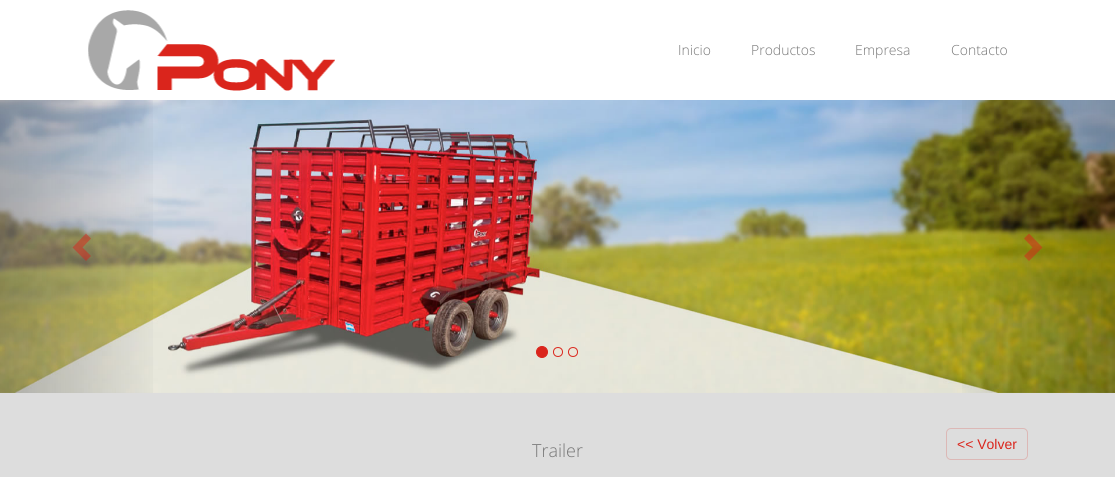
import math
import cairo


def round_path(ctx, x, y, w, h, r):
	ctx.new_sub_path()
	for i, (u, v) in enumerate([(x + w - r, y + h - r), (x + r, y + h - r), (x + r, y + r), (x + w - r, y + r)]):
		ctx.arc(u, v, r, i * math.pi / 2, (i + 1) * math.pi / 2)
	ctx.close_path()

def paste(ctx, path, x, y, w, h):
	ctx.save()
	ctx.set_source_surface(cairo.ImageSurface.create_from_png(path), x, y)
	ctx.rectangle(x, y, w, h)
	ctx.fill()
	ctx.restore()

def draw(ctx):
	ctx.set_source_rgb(0.867, 0.867, 0.867)
	ctx.paint()
	ctx.set_source_rgb(1, 1, 1)
	ctx.rectangle(0, 0, 1115, 100)
	ctx.fill()
	paste(ctx, 'media/1.png', 88, 10, 247, 81)
	ctx.select_font_face('Open Sans Light')
	ctx.set_font_size(14)
	ctx.set_source_rgb(0.467, 0.467, 0.467)
	for x, y, s in [
		(678, 55, 'Inicio'),
		(751, 55, 'Productos'),
		(855, 55, 'Empresa'),
		(951, 55, 'Contacto'),
	]:
		ctx.move_to(x, y)
		ctx.show_text(s)
	paste(ctx, 'media/2.png', 0, 100, 1115, 293)
	gradient = cairo.LinearGradient(0, 247, 167, 247)
	gradient.add_color_stop_rgba(0, 0, 0, 0, 0.25)
	gradient.add_color_stop_rgba(1, 0, 0, 0, 0)
	ctx.set_source(gradient)
	ctx.rectangle(0, 100, 153, 293)
	ctx.fill()
	ctx.set_source_rgba(0.855, 0.145, 0.11, 0.5)
	ctx.new_path()
	ctx.move_to(91, 238.5)
	ctx.line_to(82.5, 247.5)
	ctx.line_to(91, 256)
	ctx.line_to(86, 261)
	ctx.line_to(72.5, 247.5)
	ctx.line_to(86, 233.5)
	ctx.close_path()
	ctx.fill()
	ctx.set_source_rgb(0.855, 0.145, 0.11)
	ctx.arc(542, 352, 5.5, 0, 2 * math.pi)
	ctx.fill_preserve()
	ctx.set_line_width(1)
	ctx.stroke()
	ctx.arc(558, 352, 4.5, 0, 2 * math.pi)
	ctx.stroke()
	ctx.arc(573, 352, 4.5, 0, 2 * math.pi)
	ctx.stroke()
	gradient = cairo.LinearGradient(948, 247, 1115, 247)
	gradient.add_color_stop_rgba(0, 0, 0, 0, 0)
	gradient.add_color_stop_rgba(1, 0, 0, 0, 0.25)
	ctx.set_source(gradient)
	ctx.rectangle(962, 100, 153, 293)
	ctx.fill()
	ctx.set_source_rgba(0.855, 0.145, 0.11, 0.5)
	ctx.new_path()
	ctx.move_to(1042.5, 247.5)
	ctx.line_to(1029, 261)
	ctx.line_to(1024, 256)
	ctx.line_to(1032.5, 247.5)
	ctx.line_to(1024, 238.5)
	ctx.line_to(1029, 233.5)
	ctx.close_path()
	ctx.fill()
	ctx.set_font_size(18)
	ctx.set_source_rgb(0.467, 0.467, 0.467)
	ctx.move_to(532, 457)
	ctx.show_text('Trailer')
	round_path(ctx, 946.5, 428.5, 81, 31, 4.5)
	ctx.set_source_rgb(0.863, 0.722, 0.714)
	ctx.stroke()
	ctx.select_font_face('Liberation Sans')
	ctx.set_font_size(14)
	ctx.set_source_rgb(0.855, 0.145, 0.11)
	ctx.move_to(957, 449)
	ctx.show_text('<< Volver')


surface = cairo.ImageSurface(cairo.FORMAT_RGB24, 1115, 477)
ctx = cairo.Context(surface)
options = cairo.FontOptions()
options.set_hint_metrics(cairo.HINT_METRICS_OFF)
options.set_hint_style(cairo.HINT_STYLE_NONE)
ctx.set_font_options(options)
ctx.set_miter_limit(4)
draw(ctx)
surface.write_to_png('image.png')
